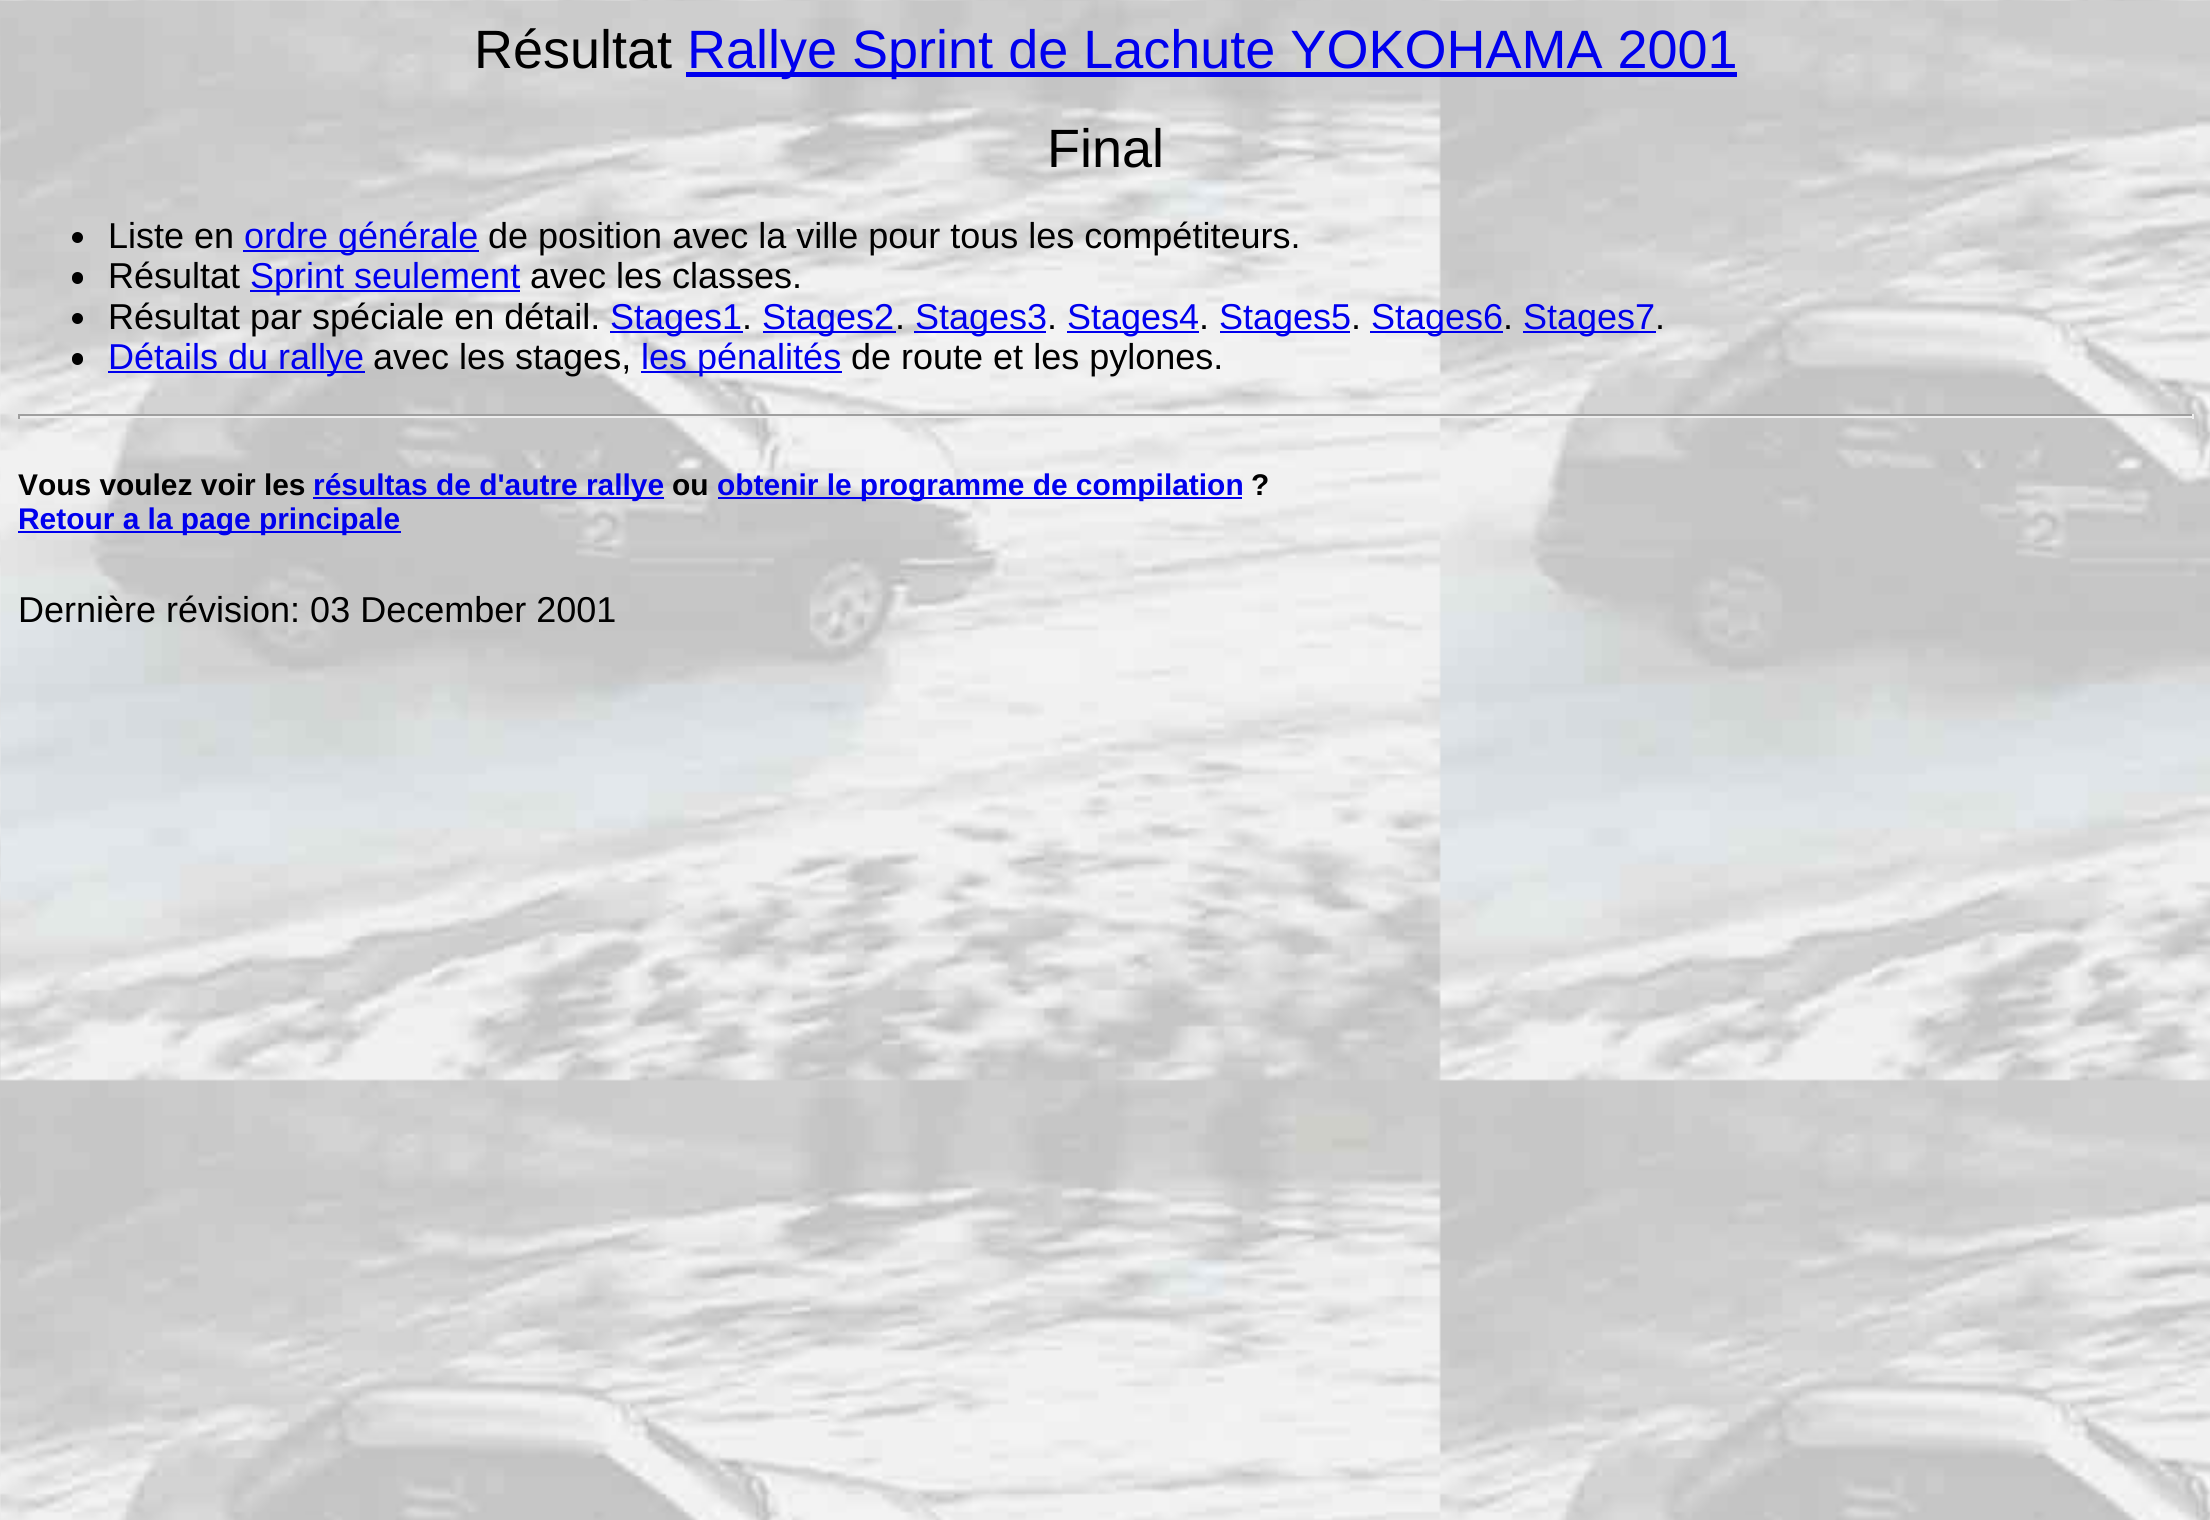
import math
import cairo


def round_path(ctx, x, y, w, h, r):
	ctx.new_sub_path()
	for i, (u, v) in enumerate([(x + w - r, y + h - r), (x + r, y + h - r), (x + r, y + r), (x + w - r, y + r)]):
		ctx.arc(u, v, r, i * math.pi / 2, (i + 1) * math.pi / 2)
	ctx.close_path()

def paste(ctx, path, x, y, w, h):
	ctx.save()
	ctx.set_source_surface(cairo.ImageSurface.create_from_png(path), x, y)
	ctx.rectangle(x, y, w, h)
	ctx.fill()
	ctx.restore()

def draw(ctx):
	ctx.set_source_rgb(1, 1, 1)
	ctx.paint()
	paste(ctx, 'media/1.png', 0, 0, 2210, 1520)
	ctx.select_font_face('Liberation Sans')
	ctx.set_font_size(54)
	ctx.set_source_rgb(0, 0, 0)
	ctx.move_to(474, 68)
	ctx.show_text('Résultat')
	ctx.set_source_rgb(0, 0, 0.933)
	ctx.rectangle(686, 72, 1051, 5)
	ctx.fill()
	ctx.move_to(687, 68)
	ctx.show_text('Rallye Sprint de Lachute YOKOHAMA 2001')
	ctx.set_source_rgb(0, 0, 0)
	ctx.move_to(1047, 167)
	ctx.show_text('Final')
	ctx.new_path()
	ctx.arc(77.5, 237.5, 5.5, 0, 2 * math.pi)
	ctx.fill()
	ctx.set_font_size(36)
	ctx.move_to(108, 248)
	ctx.show_text('Liste en')
	ctx.set_source_rgb(0, 0, 0.933)
	ctx.rectangle(243, 250, 236, 2)
	ctx.fill()
	ctx.move_to(244, 248)
	ctx.show_text('ordre générale')
	ctx.set_source_rgb(0, 0, 0)
	ctx.move_to(488, 248)
	ctx.show_text('de position avec la ville pour tous les compétiteurs.')
	round_path(ctx, 72, 272, 11, 12, 5.5)
	ctx.fill()
	ctx.move_to(108, 288)
	ctx.show_text('Résultat')
	ctx.set_source_rgb(0, 0, 0.933)
	ctx.rectangle(250, 290, 270, 2)
	ctx.fill()
	ctx.move_to(250, 288)
	ctx.show_text('Sprint seulement')
	ctx.set_source_rgb(0, 0, 0)
	ctx.move_to(530, 288)
	ctx.show_text('avec les classes.')
	ctx.new_path()
	ctx.arc(77.5, 318.5, 5.5, 0, 2 * math.pi)
	ctx.fill()
	ctx.move_to(108, 329)
	ctx.show_text('Résultat par spéciale en détail.')
	ctx.set_source_rgb(0, 0, 0.933)
	ctx.rectangle(610, 331, 133, 2)
	ctx.fill()
	ctx.move_to(610, 329)
	ctx.show_text('Stages1')
	ctx.rectangle(763, 331, 133, 2)
	ctx.fill()
	ctx.move_to(762, 329)
	ctx.show_text('Stages2')
	ctx.rectangle(914, 331, 132, 2)
	ctx.fill()
	ctx.move_to(915, 329)
	ctx.show_text('Stages3')
	ctx.rectangle(1067, 331, 132, 2)
	ctx.fill()
	ctx.move_to(1067, 329)
	ctx.show_text('Stages4')
	ctx.rectangle(1220, 331, 130, 2)
	ctx.fill()
	ctx.move_to(1219, 329)
	ctx.show_text('Stages5')
	ctx.rectangle(1370, 331, 133, 2)
	ctx.fill()
	ctx.move_to(1371, 329)
	ctx.show_text('Stages6')
	ctx.rectangle(1523, 331, 133, 2)
	ctx.fill()
	ctx.move_to(1523, 329)
	ctx.show_text('Stages7')
	ctx.set_source_rgb(0, 0, 0)
	for x, y, s in [
		(742, 329, '.'),
		(895, 329, '.'),
		(1047, 329, '.'),
		(1199, 329, '.'),
		(1351, 329, '.'),
		(1503, 329, '.'),
		(1655, 329, '.'),
	]:
		ctx.move_to(x, y)
		ctx.show_text(s)
	round_path(ctx, 72, 353, 11, 12, 5.5)
	ctx.fill()
	ctx.set_source_rgb(0, 0, 0.933)
	ctx.rectangle(108, 371, 257, 2)
	ctx.fill()
	ctx.move_to(108, 369)
	ctx.show_text('Détails du rallye')
	ctx.set_source_rgb(0, 0, 0)
	ctx.move_to(373, 369)
	ctx.show_text('avec les stages,')
	ctx.set_source_rgb(0, 0, 0.933)
	ctx.rectangle(641, 371, 201, 2)
	ctx.fill()
	ctx.move_to(641, 369)
	ctx.show_text('les pénalités')
	ctx.set_source_rgb(0, 0, 0)
	ctx.move_to(851, 369)
	ctx.show_text('de route et les pylones.')
	ctx.set_source_rgb(0.624, 0.624, 0.624)
	ctx.rectangle(18, 414, 2176, 2)
	ctx.fill()
	ctx.set_source_rgb(0.933, 0.933, 0.933)
	ctx.rectangle(2192, 414, 2, 5)
	ctx.rectangle(18, 416, 2176, 2)
	ctx.fill()
	ctx.set_source_rgb(0.624, 0.624, 0.624)
	ctx.rectangle(18, 414, 2, 5)
	ctx.fill()
	ctx.select_font_face('Liberation Sans', cairo.FONT_SLANT_NORMAL, cairo.FONT_WEIGHT_BOLD)
	ctx.set_font_size(29.9)
	ctx.set_source_rgb(0, 0, 0)
	ctx.move_to(18, 495)
	ctx.show_text('Vous voulez voir les')
	ctx.set_source_rgb(0, 0, 0.933)
	ctx.rectangle(313, 497, 351, 2)
	ctx.fill()
	ctx.move_to(313, 495)
	ctx.show_text('résultas de d\'autre rallye')
	ctx.set_source_rgb(0, 0, 0)
	ctx.move_to(672, 495)
	ctx.show_text('ou')
	ctx.set_source_rgb(0, 0, 0.933)
	ctx.rectangle(718, 497, 524, 2)
	ctx.fill()
	ctx.move_to(717, 495)
	ctx.show_text('obtenir le programme de compilation')
	ctx.set_source_rgb(0, 0, 0)
	ctx.move_to(1251, 495)
	ctx.show_text('?')
	ctx.set_source_rgb(0, 0, 0.933)
	ctx.rectangle(18, 531, 383, 2)
	ctx.fill()
	ctx.move_to(18, 529)
	ctx.show_text('Retour a la page principale')
	ctx.select_font_face('Liberation Sans')
	ctx.set_font_size(36)
	ctx.set_source_rgb(0, 0, 0)
	ctx.move_to(18, 622)
	ctx.show_text('Dernière révision: 03 December 2001')


surface = cairo.ImageSurface(cairo.FORMAT_RGB24, 2210, 1520)
ctx = cairo.Context(surface)
options = cairo.FontOptions()
options.set_hint_metrics(cairo.HINT_METRICS_OFF)
options.set_hint_style(cairo.HINT_STYLE_NONE)
ctx.set_font_options(options)
ctx.set_miter_limit(4)
draw(ctx)
surface.write_to_png('image.png')
